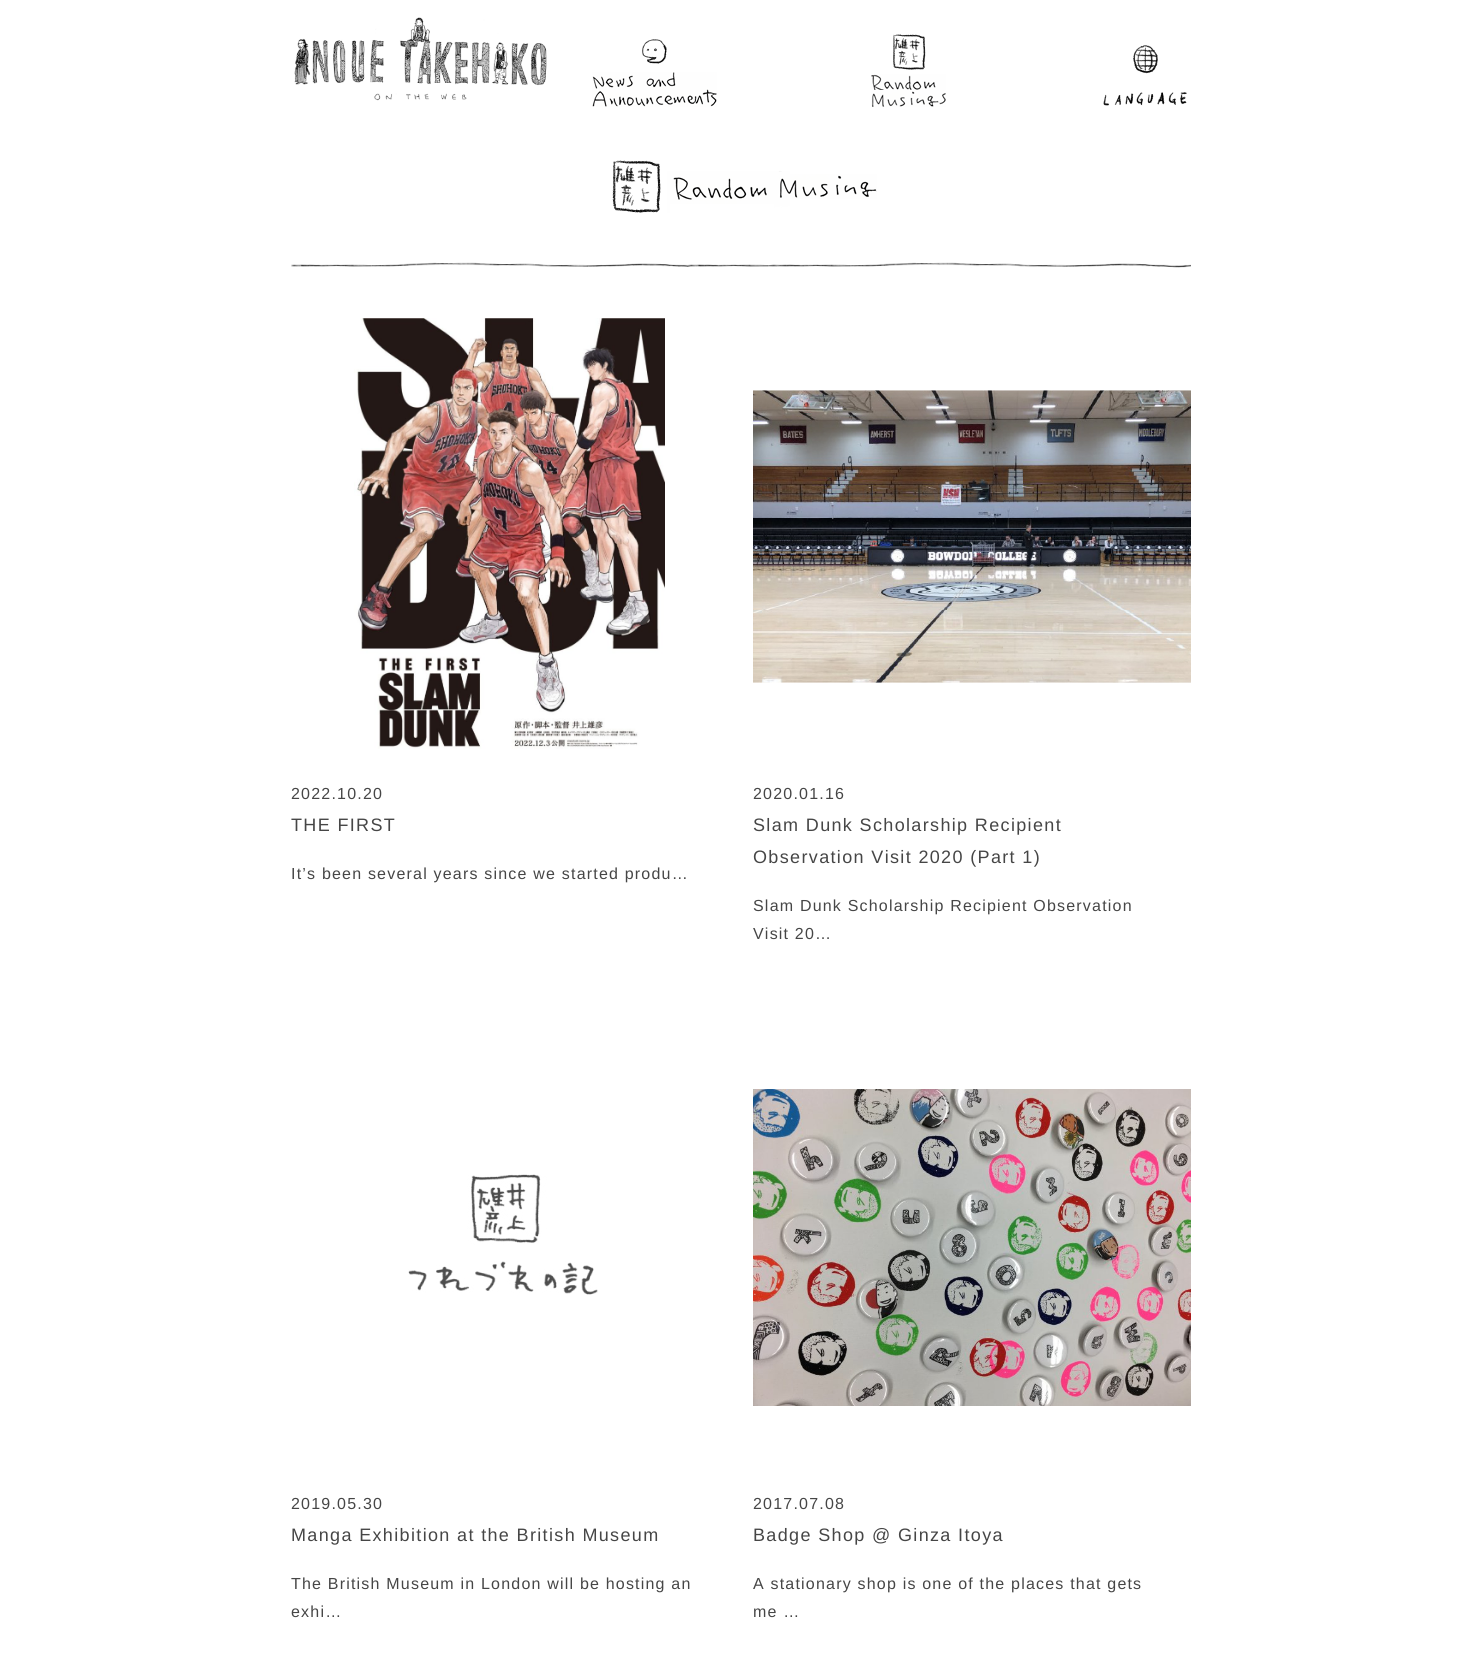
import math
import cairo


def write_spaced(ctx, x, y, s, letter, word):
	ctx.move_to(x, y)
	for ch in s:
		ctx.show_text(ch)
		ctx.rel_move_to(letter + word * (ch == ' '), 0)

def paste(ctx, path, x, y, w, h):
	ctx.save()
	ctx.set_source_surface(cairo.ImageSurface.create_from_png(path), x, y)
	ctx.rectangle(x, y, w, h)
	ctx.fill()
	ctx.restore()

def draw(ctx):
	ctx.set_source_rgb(1, 1, 1)
	ctx.paint()
	paste(ctx, 'media/1.png', 294, 17, 253, 84)
	paste(ctx, 'media/2.png', 642, 39, 25, 25)
	paste(ctx, 'media/3.png', 592, 72, 125, 35)
	paste(ctx, 'media/4.png', 893, 34, 33, 36)
	paste(ctx, 'media/5.png', 871, 74, 75, 33)
	paste(ctx, 'media/6.png', 1133, 45, 25, 29)
	paste(ctx, 'media/7.png', 1103, 92, 84, 14)
	paste(ctx, 'media/8.png', 612, 160, 265, 53)
	paste(ctx, 'media/9.png', 291, 262, 900, 6)
	paste(ctx, 'media/10.png', 354, 318, 311, 431)
	ctx.select_font_face('Liberation Sans')
	ctx.set_font_size(16)
	ctx.set_source_rgb(0.275, 0.275, 0.275)
	write_spaced(ctx, 291, 799, '2022.10.20', 1.2, 0)
	ctx.set_font_size(18)
	write_spaced(ctx, 291, 831, 'THE FIRST', 1.35, 0)
	ctx.set_font_size(16)
	write_spaced(ctx, 291, 879, 'It’s been several years since we started produ…', 1.2, 0)
	paste(ctx, 'media/11.png', 753, 390, 438, 293)
	write_spaced(ctx, 753, 799, '2020.01.16', 1.2, 0)
	ctx.set_font_size(18)
	write_spaced(ctx, 753, 831, 'Slam Dunk Scholarship Recipient', 1.35, 0)
	write_spaced(ctx, 753, 863, 'Observation Visit 2020 (Part 1)', 1.35, 0)
	ctx.set_font_size(16)
	write_spaced(ctx, 753, 911, 'Slam Dunk Scholarship Recipient Observation', 1.2, 0)
	write_spaced(ctx, 753, 939, 'Visit 20…', 1.2, 0)
	paste(ctx, 'media/12.png', 408, 1174, 190, 121)
	write_spaced(ctx, 291, 1509, '2019.05.30', 1.2, 0)
	ctx.set_font_size(18)
	write_spaced(ctx, 291, 1541, 'Manga Exhibition at the British Museum', 1.35, 0)
	ctx.set_font_size(16)
	write_spaced(ctx, 291, 1589, 'The British Museum in London will be hosting an', 1.2, 0)
	write_spaced(ctx, 291, 1617, 'exhi…', 1.2, 0)
	paste(ctx, 'media/13.png', 753, 1089, 438, 317)
	write_spaced(ctx, 753, 1509, '2017.07.08', 1.2, 0)
	ctx.set_font_size(18)
	write_spaced(ctx, 753, 1541, 'Badge Shop @ Ginza Itoya', 1.35, 0)
	ctx.set_font_size(16)
	write_spaced(ctx, 753, 1589, 'A stationary shop is one of the places that gets', 1.2, 0)
	write_spaced(ctx, 753, 1617, 'me …', 1.2, 0)


surface = cairo.ImageSurface(cairo.FORMAT_RGB24, 1481, 1678)
ctx = cairo.Context(surface)
options = cairo.FontOptions()
options.set_hint_metrics(cairo.HINT_METRICS_OFF)
options.set_hint_style(cairo.HINT_STYLE_NONE)
ctx.set_font_options(options)
ctx.set_miter_limit(4)
draw(ctx)
surface.write_to_png('image.png')
